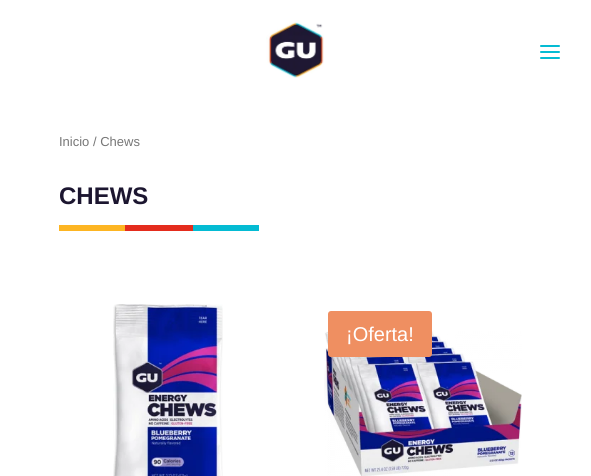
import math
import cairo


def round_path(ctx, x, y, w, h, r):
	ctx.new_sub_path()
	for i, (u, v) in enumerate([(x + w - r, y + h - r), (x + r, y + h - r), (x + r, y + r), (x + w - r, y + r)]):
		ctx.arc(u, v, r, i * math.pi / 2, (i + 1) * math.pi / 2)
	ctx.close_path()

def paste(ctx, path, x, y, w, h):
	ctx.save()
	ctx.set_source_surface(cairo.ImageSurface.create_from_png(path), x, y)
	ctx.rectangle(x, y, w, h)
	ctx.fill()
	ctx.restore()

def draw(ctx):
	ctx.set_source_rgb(1, 1, 1)
	ctx.paint()
	paste(ctx, 'media/1.png', 266, 20, 58, 58)
	paste(ctx, 'media/2.png', 540, 45, 20, 14)
	ctx.select_font_face('Liberation Sans')
	ctx.set_font_size(13)
	ctx.set_source_rgb(0.463, 0.463, 0.463)
	ctx.move_to(59, 146)
	ctx.show_text('Inicio / Chews')
	ctx.select_font_face('Liberation Sans', cairo.FONT_SLANT_NORMAL, cairo.FONT_WEIGHT_BOLD)
	ctx.set_font_size(24)
	ctx.set_source_rgb(0.11, 0.086, 0.188)
	ctx.move_to(59, 204)
	ctx.show_text('CHEWS')
	ctx.set_source_rgb(0.894, 0.173, 0.114)
	ctx.rectangle(125, 225, 68, 6)
	ctx.fill()
	ctx.set_source_rgb(0.992, 0.71, 0.133)
	ctx.rectangle(59, 225, 66, 6)
	ctx.fill()
	ctx.set_source_rgb(0.016, 0.733, 0.827)
	ctx.rectangle(193, 225, 66, 6)
	ctx.fill()
	paste(ctx, 'media/3.png', 113, 304, 110, 172)
	paste(ctx, 'media/4.png', 324, 331, 198, 145)
	ctx.set_source_rgb(0.937, 0.561, 0.38)
	round_path(ctx, 328, 311, 104, 46, 3)
	ctx.fill()
	ctx.select_font_face('Liberation Sans')
	ctx.set_font_size(20)
	ctx.set_source_rgb(1, 1, 1)
	ctx.move_to(346, 341)
	ctx.show_text('¡Oferta!')


surface = cairo.ImageSurface(cairo.FORMAT_RGB24, 591, 476)
ctx = cairo.Context(surface)
options = cairo.FontOptions()
options.set_hint_metrics(cairo.HINT_METRICS_OFF)
options.set_hint_style(cairo.HINT_STYLE_NONE)
ctx.set_font_options(options)
ctx.set_miter_limit(4)
draw(ctx)
surface.write_to_png('image.png')
